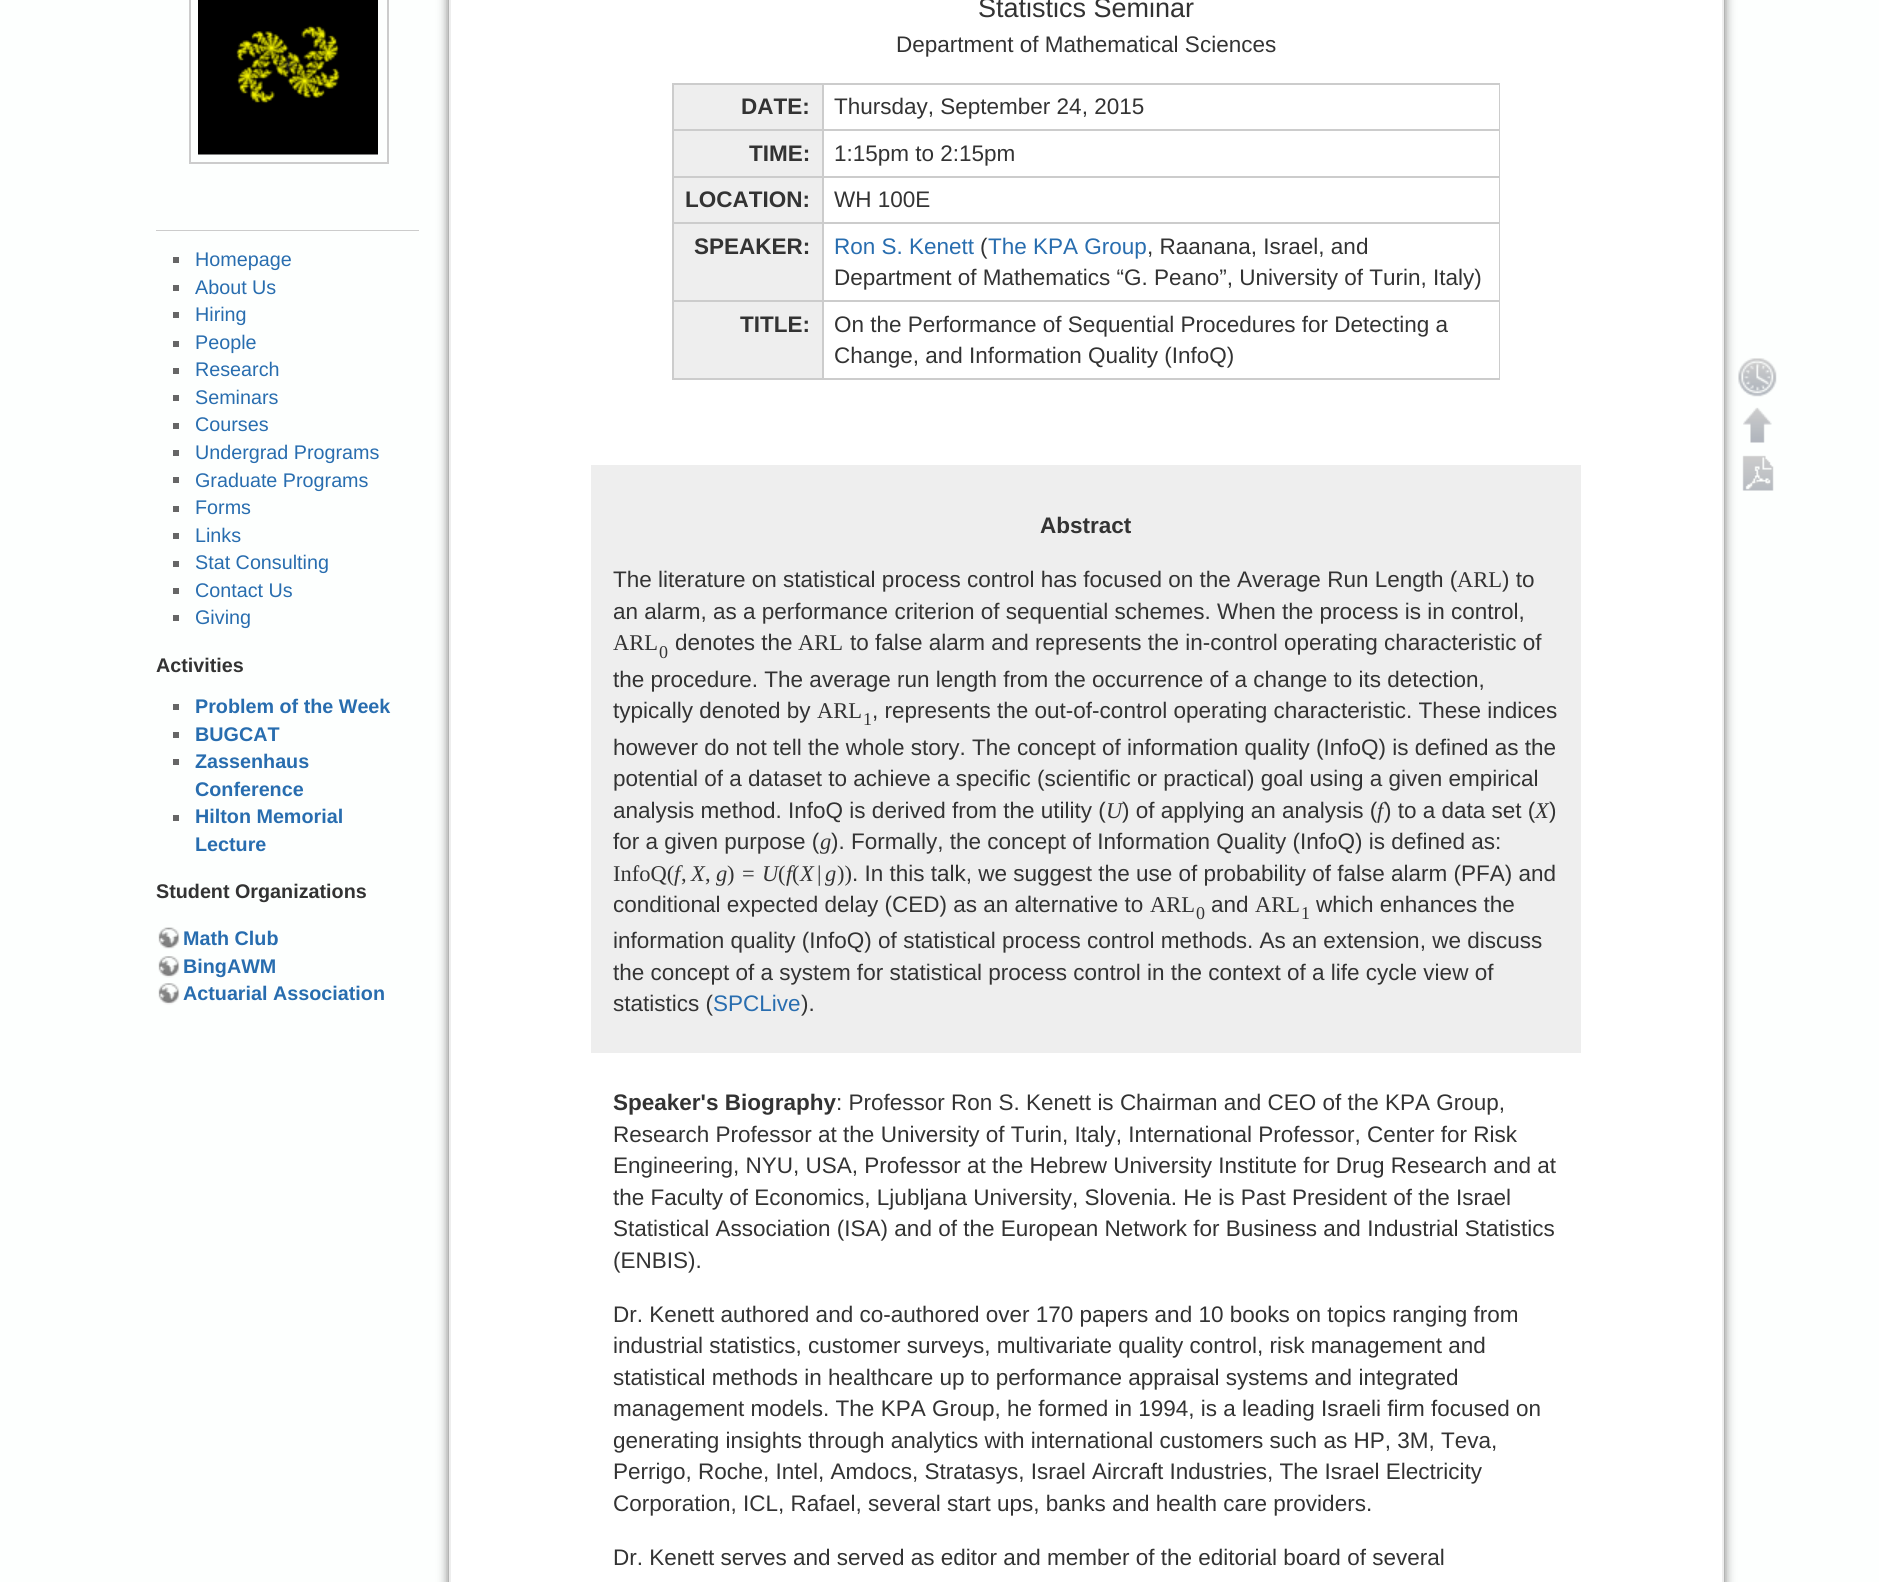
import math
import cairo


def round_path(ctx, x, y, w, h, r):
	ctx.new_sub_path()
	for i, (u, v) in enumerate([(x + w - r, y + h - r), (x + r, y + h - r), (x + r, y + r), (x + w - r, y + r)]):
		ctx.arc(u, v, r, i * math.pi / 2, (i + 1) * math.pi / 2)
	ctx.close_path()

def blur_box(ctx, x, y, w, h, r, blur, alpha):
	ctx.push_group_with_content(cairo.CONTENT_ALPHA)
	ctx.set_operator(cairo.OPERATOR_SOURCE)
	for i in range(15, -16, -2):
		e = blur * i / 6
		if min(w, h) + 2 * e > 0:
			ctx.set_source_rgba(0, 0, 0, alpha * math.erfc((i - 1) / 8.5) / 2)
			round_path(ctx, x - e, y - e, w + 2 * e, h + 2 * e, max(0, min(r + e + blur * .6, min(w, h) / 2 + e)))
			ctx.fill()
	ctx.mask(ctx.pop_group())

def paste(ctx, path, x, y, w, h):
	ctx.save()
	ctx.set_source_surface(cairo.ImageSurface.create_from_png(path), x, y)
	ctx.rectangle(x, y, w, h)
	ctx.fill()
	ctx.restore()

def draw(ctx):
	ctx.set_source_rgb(0.992, 1, 0.996)
	ctx.paint()
	ctx.rectangle(190, -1, 198, 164)
	ctx.set_source_rgb(0.8, 0.8, 0.8)
	ctx.stroke()
	paste(ctx, 'media/1.png', 198, 0, 180, 155)
	ctx.rectangle(156, 230, 263, 1)
	ctx.fill()
	ctx.set_source_rgb(0.4, 0.4, 0.4)
	ctx.rectangle(173, 257, 6, 6)
	ctx.fill()
	ctx.select_font_face('Liberation Sans')
	ctx.set_font_size(19.75)
	ctx.set_source_rgb(0.157, 0.427, 0.686)
	ctx.move_to(195, 266)
	ctx.show_text('Homepage')
	ctx.set_source_rgb(0.4, 0.4, 0.4)
	ctx.rectangle(173, 285, 6, 6)
	ctx.fill()
	ctx.set_source_rgb(0.157, 0.427, 0.686)
	ctx.move_to(195, 294)
	ctx.show_text('About Us')
	ctx.set_source_rgb(0.4, 0.4, 0.4)
	ctx.rectangle(173, 312, 6, 6)
	ctx.fill()
	ctx.set_source_rgb(0.157, 0.427, 0.686)
	ctx.move_to(195, 321)
	ctx.show_text('Hiring')
	ctx.set_source_rgb(0.4, 0.4, 0.4)
	ctx.rectangle(173, 341, 6, 6)
	ctx.fill()
	ctx.set_source_rgb(0.157, 0.427, 0.686)
	ctx.move_to(195, 349)
	ctx.show_text('People')
	ctx.set_source_rgb(0.4, 0.4, 0.4)
	ctx.rectangle(173, 368, 6, 6)
	ctx.fill()
	ctx.set_source_rgb(0.157, 0.427, 0.686)
	ctx.move_to(195, 376)
	ctx.show_text('Research')
	ctx.set_source_rgb(0.4, 0.4, 0.4)
	ctx.rectangle(173, 395, 6, 6)
	ctx.fill()
	ctx.set_source_rgb(0.157, 0.427, 0.686)
	ctx.move_to(195, 404)
	ctx.show_text('Seminars')
	ctx.set_source_rgb(0.4, 0.4, 0.4)
	ctx.rectangle(173, 423, 6, 6)
	ctx.fill()
	ctx.set_source_rgb(0.157, 0.427, 0.686)
	ctx.move_to(195, 431)
	ctx.show_text('Courses')
	ctx.set_source_rgb(0.4, 0.4, 0.4)
	ctx.rectangle(173, 450, 6, 6)
	ctx.fill()
	ctx.set_source_rgb(0.157, 0.427, 0.686)
	ctx.move_to(195, 459)
	ctx.show_text('Undergrad Programs')
	ctx.set_source_rgb(0.4, 0.4, 0.4)
	ctx.rectangle(173, 477, 6, 6)
	ctx.fill()
	ctx.set_source_rgb(0.157, 0.427, 0.686)
	ctx.move_to(195, 487)
	ctx.show_text('Graduate Programs')
	ctx.set_source_rgb(0.4, 0.4, 0.4)
	ctx.rectangle(173, 506, 6, 6)
	ctx.fill()
	ctx.set_source_rgb(0.157, 0.427, 0.686)
	ctx.move_to(195, 514)
	ctx.show_text('Forms')
	ctx.set_source_rgb(0.4, 0.4, 0.4)
	ctx.rectangle(173, 533, 6, 6)
	ctx.fill()
	ctx.set_source_rgb(0.157, 0.427, 0.686)
	ctx.move_to(195, 542)
	ctx.show_text('Links')
	ctx.set_source_rgb(0.4, 0.4, 0.4)
	ctx.rectangle(173, 561, 6, 6)
	ctx.fill()
	ctx.set_source_rgb(0.157, 0.427, 0.686)
	ctx.move_to(195, 569)
	ctx.show_text('Stat Consulting')
	ctx.set_source_rgb(0.4, 0.4, 0.4)
	ctx.rectangle(173, 588, 6, 6)
	ctx.fill()
	ctx.set_source_rgb(0.157, 0.427, 0.686)
	ctx.move_to(195, 597)
	ctx.show_text('Contact Us')
	ctx.set_source_rgb(0.4, 0.4, 0.4)
	ctx.rectangle(173, 615, 6, 6)
	ctx.fill()
	ctx.set_source_rgb(0.157, 0.427, 0.686)
	ctx.move_to(195, 624)
	ctx.show_text('Giving')
	ctx.select_font_face('Liberation Sans', cairo.FONT_SLANT_NORMAL, cairo.FONT_WEIGHT_BOLD)
	ctx.set_source_rgb(0.2, 0.2, 0.2)
	ctx.move_to(156, 672)
	ctx.show_text('Activities')
	ctx.set_source_rgb(0.4, 0.4, 0.4)
	ctx.rectangle(173, 704, 6, 6)
	ctx.fill()
	ctx.set_source_rgb(0.157, 0.427, 0.686)
	ctx.move_to(195, 713)
	ctx.show_text('Problem of the Week')
	ctx.set_source_rgb(0.4, 0.4, 0.4)
	ctx.rectangle(173, 732, 6, 6)
	ctx.fill()
	ctx.set_source_rgb(0.157, 0.427, 0.686)
	ctx.move_to(195, 741)
	ctx.show_text('BUGCAT')
	ctx.set_source_rgb(0.4, 0.4, 0.4)
	ctx.rectangle(173, 759, 6, 6)
	ctx.fill()
	ctx.set_source_rgb(0.157, 0.427, 0.686)
	ctx.move_to(195, 768)
	ctx.show_text('Zassenhaus')
	ctx.move_to(195, 796)
	ctx.show_text('Conference')
	ctx.set_source_rgb(0.4, 0.4, 0.4)
	ctx.rectangle(173, 815, 6, 6)
	ctx.fill()
	ctx.set_source_rgb(0.157, 0.427, 0.686)
	ctx.move_to(195, 823)
	ctx.show_text('Hilton Memorial')
	ctx.move_to(195, 851)
	ctx.show_text('Lecture')
	ctx.set_source_rgb(0.2, 0.2, 0.2)
	ctx.move_to(156, 898)
	ctx.show_text('Student Organizations')
	paste(ctx, 'media/2.png', 158, 927, 22, 22)
	ctx.set_source_rgb(0.157, 0.427, 0.686)
	ctx.move_to(183, 945)
	ctx.show_text('Math Club')
	paste(ctx, 'media/3.png', 158, 956, 22, 22)
	ctx.move_to(183, 973)
	ctx.show_text('BingAWM')
	paste(ctx, 'media/3.png', 158, 983, 22, 22)
	ctx.move_to(183, 1000)
	ctx.show_text('Actuarial Association')
	ctx.set_source_rgb(0.4, 0.4, 0.4)
	blur_box(ctx, 449, -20, 1275, 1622, 3, 5.5, 1)
	ctx.set_source_rgb(1, 1, 1)
	ctx.rectangle(450, -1, 1273, 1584)
	ctx.fill_preserve()
	ctx.set_source_rgb(0.933, 0.933, 0.933)
	ctx.stroke()
	ctx.select_font_face('Liberation Sans')
	ctx.set_font_size(27)
	ctx.set_source_rgb(0.2, 0.2, 0.2)
	ctx.move_to(978, 17)
	ctx.show_text('Statistics Seminar')
	ctx.set_font_size(22.5)
	ctx.move_to(896, 52)
	ctx.show_text('Department of Mathematical Sciences')
	ctx.set_source_rgb(0.8, 0.8, 0.8)
	ctx.rectangle(672, 83, 828, 2)
	ctx.rectangle(1499, 83, 1, 297)
	ctx.rectangle(672, 378, 828, 2)
	ctx.rectangle(672, 83, 2, 297)
	ctx.fill()
	ctx.set_source_rgb(0.933, 0.933, 0.933)
	ctx.rectangle(674, 85, 148, 44)
	ctx.fill()
	ctx.select_font_face('Liberation Sans', cairo.FONT_SLANT_NORMAL, cairo.FONT_WEIGHT_BOLD)
	ctx.set_source_rgb(0.2, 0.2, 0.2)
	ctx.move_to(741, 114)
	ctx.show_text('DATE:')
	ctx.set_source_rgb(0.8, 0.8, 0.8)
	ctx.rectangle(822, 129, 678, 2)
	ctx.rectangle(822, 176, 678, 2)
	ctx.rectangle(822, 222, 678, 2)
	ctx.rectangle(822, 300, 678, 2)
	ctx.rectangle(822, 300, 2, 80)
	ctx.rectangle(672, 300, 152, 2)
	ctx.rectangle(822, 222, 2, 80)
	ctx.rectangle(672, 222, 152, 2)
	ctx.rectangle(822, 176, 2, 48)
	ctx.rectangle(672, 176, 152, 2)
	ctx.rectangle(822, 129, 2, 48)
	ctx.rectangle(672, 129, 152, 2)
	ctx.rectangle(822, 83, 2, 48)
	ctx.fill()
	ctx.select_font_face('Liberation Sans')
	ctx.set_source_rgb(0.2, 0.2, 0.2)
	ctx.move_to(834, 114)
	ctx.show_text('Thursday, September 24, 2015')
	ctx.set_source_rgb(0.933, 0.933, 0.933)
	ctx.rectangle(674, 131, 148, 45)
	ctx.fill()
	ctx.select_font_face('Liberation Sans', cairo.FONT_SLANT_NORMAL, cairo.FONT_WEIGHT_BOLD)
	ctx.set_source_rgb(0.2, 0.2, 0.2)
	ctx.move_to(749, 161)
	ctx.show_text('TIME:')
	ctx.select_font_face('Liberation Sans')
	ctx.move_to(834, 161)
	ctx.show_text('1:15pm to 2:15pm')
	ctx.set_source_rgb(0.933, 0.933, 0.933)
	ctx.rectangle(674, 178, 148, 44)
	ctx.fill()
	ctx.select_font_face('Liberation Sans', cairo.FONT_SLANT_NORMAL, cairo.FONT_WEIGHT_BOLD)
	ctx.set_source_rgb(0.2, 0.2, 0.2)
	ctx.move_to(685, 207)
	ctx.show_text('LOCATION:')
	ctx.select_font_face('Liberation Sans')
	ctx.move_to(834, 207)
	ctx.show_text('WH 100E')
	ctx.set_source_rgb(0.933, 0.933, 0.933)
	ctx.rectangle(674, 224, 148, 76)
	ctx.fill()
	ctx.select_font_face('Liberation Sans', cairo.FONT_SLANT_NORMAL, cairo.FONT_WEIGHT_BOLD)
	ctx.set_source_rgb(0.2, 0.2, 0.2)
	ctx.move_to(694, 254)
	ctx.show_text('SPEAKER:')
	ctx.select_font_face('Liberation Sans')
	ctx.set_source_rgb(0.157, 0.427, 0.686)
	ctx.move_to(834, 254)
	ctx.show_text('Ron S. Kenett')
	ctx.set_source_rgb(0.2, 0.2, 0.2)
	ctx.move_to(980, 254)
	ctx.show_text('(')
	ctx.set_source_rgb(0.157, 0.427, 0.686)
	ctx.move_to(988, 254)
	ctx.show_text('The KPA Group')
	ctx.set_source_rgb(0.2, 0.2, 0.2)
	ctx.move_to(1147, 254)
	ctx.show_text(', Raanana, Israel, and')
	ctx.move_to(834, 285)
	ctx.show_text('Department of Mathematics “G. Peano”, University of Turin, Italy)')
	ctx.set_source_rgb(0.933, 0.933, 0.933)
	ctx.rectangle(674, 302, 148, 76)
	ctx.fill()
	ctx.select_font_face('Liberation Sans', cairo.FONT_SLANT_NORMAL, cairo.FONT_WEIGHT_BOLD)
	ctx.set_source_rgb(0.2, 0.2, 0.2)
	ctx.move_to(740, 332)
	ctx.show_text('TITLE:')
	ctx.select_font_face('Liberation Sans')
	ctx.move_to(834, 332)
	ctx.show_text('On the Performance of Sequential Procedures for Detecting a')
	ctx.move_to(834, 363)
	ctx.show_text('Change, and Information Quality (InfoQ)')
	ctx.set_source_rgb(0.933, 0.933, 0.933)
	ctx.rectangle(591, 465, 990, 588)
	ctx.fill()
	ctx.select_font_face('Liberation Sans', cairo.FONT_SLANT_NORMAL, cairo.FONT_WEIGHT_BOLD)
	ctx.set_source_rgb(0.2, 0.2, 0.2)
	ctx.move_to(1040, 533)
	ctx.show_text('Abstract')
	ctx.select_font_face('Liberation Sans')
	ctx.move_to(613, 587)
	ctx.show_text('The literature on statistical process control has focused on the Average Run Length (')
	ctx.select_font_face('Liberation Serif')
	ctx.move_to(1457, 587)
	ctx.show_text('ARL')
	ctx.select_font_face('Liberation Sans')
	ctx.move_to(1502, 587)
	ctx.show_text(') to')
	ctx.move_to(613, 619)
	ctx.show_text('an alarm, as a performance criterion of sequential schemes. When the process is in control,')
	ctx.select_font_face('Liberation Serif')
	ctx.move_to(613, 650)
	ctx.show_text('ARL')
	ctx.set_font_size(18)
	ctx.move_to(659, 658)
	ctx.show_text('0')
	ctx.select_font_face('Liberation Sans')
	ctx.set_font_size(22.5)
	ctx.move_to(675, 650)
	ctx.show_text('denotes the')
	ctx.select_font_face('Liberation Serif')
	ctx.move_to(798, 650)
	ctx.show_text('ARL')
	ctx.select_font_face('Liberation Sans')
	for x, y, s in [
		(850, 650, 'to false alarm and represents the in-control operating characteristic of'),
		(613, 687, 'the procedure. The average run length from the occurrence of a change to its detection,'),
		(613, 718, 'typically denoted by'),
	]:
		ctx.move_to(x, y)
		ctx.show_text(s)
	ctx.select_font_face('Liberation Serif')
	ctx.move_to(817, 718)
	ctx.show_text('ARL')
	ctx.set_font_size(18)
	ctx.move_to(863, 725)
	ctx.show_text('1')
	ctx.select_font_face('Liberation Sans')
	ctx.set_font_size(22.5)
	for x, y, s in [
		(872, 718, ', represents the out-of-control operating characteristic. These indices'),
		(613, 755, 'however do not tell the whole story. The concept of information quality (InfoQ) is defined as the'),
		(613, 786, 'potential of a dataset to achieve a specific (scientific or practical) goal using a given empirical'),
		(613, 818, 'analysis method. InfoQ is derived from the utility ('),
	]:
		ctx.move_to(x, y)
		ctx.show_text(s)
	ctx.select_font_face('Liberation Serif', cairo.FONT_SLANT_ITALIC)
	ctx.move_to(1106, 818)
	ctx.show_text('U')
	ctx.select_font_face('Liberation Sans')
	ctx.move_to(1122, 818)
	ctx.show_text(') of applying an analysis (')
	ctx.select_font_face('Liberation Serif', cairo.FONT_SLANT_ITALIC)
	ctx.move_to(1377, 818)
	ctx.show_text('f')
	ctx.select_font_face('Liberation Sans')
	ctx.move_to(1384, 818)
	ctx.show_text(') to a data set (')
	ctx.select_font_face('Liberation Serif', cairo.FONT_SLANT_ITALIC)
	ctx.move_to(1535, 818)
	ctx.show_text('X')
	ctx.select_font_face('Liberation Sans')
	ctx.move_to(1549, 818)
	ctx.show_text(')')
	ctx.move_to(613, 849)
	ctx.show_text('for a given purpose (')
	ctx.select_font_face('Liberation Serif', cairo.FONT_SLANT_ITALIC)
	ctx.move_to(820, 849)
	ctx.show_text('g')
	ctx.select_font_face('Liberation Sans')
	ctx.move_to(831, 849)
	ctx.show_text('). Formally, the concept of Information Quality (InfoQ) is defined as:')
	ctx.select_font_face('Liberation Serif')
	ctx.move_to(613, 881)
	ctx.show_text('InfoQ(')
	ctx.select_font_face('Liberation Serif', cairo.FONT_SLANT_ITALIC)
	for x, y, s in [
		(674, 881, 'f'),
		(691, 881, 'X'),
		(716, 881, 'g'),
	]:
		ctx.move_to(x, y)
		ctx.show_text(s)
	ctx.select_font_face('Liberation Serif')
	ctx.move_to(727, 881)
	ctx.show_text(')')
	ctx.move_to(742, 881)
	ctx.show_text('=')
	ctx.select_font_face('Liberation Serif', cairo.FONT_SLANT_ITALIC)
	ctx.move_to(762, 881)
	ctx.show_text('U')
	ctx.select_font_face('Liberation Serif')
	ctx.move_to(778, 881)
	ctx.show_text('(')
	ctx.select_font_face('Liberation Serif', cairo.FONT_SLANT_ITALIC)
	ctx.move_to(786, 881)
	ctx.show_text('f')
	ctx.select_font_face('Liberation Serif')
	ctx.move_to(792, 881)
	ctx.show_text('(')
	ctx.select_font_face('Liberation Serif', cairo.FONT_SLANT_ITALIC)
	ctx.move_to(800, 881)
	ctx.show_text('X')
	ctx.select_font_face('Liberation Serif')
	ctx.move_to(817, 881)
	ctx.show_text('|')
	ctx.select_font_face('Liberation Serif', cairo.FONT_SLANT_ITALIC)
	ctx.move_to(825, 881)
	ctx.show_text('g')
	ctx.select_font_face('Liberation Serif')
	for x, y, s in [
		(837, 881, '))'),
		(681, 881, ','),
		(705, 881, ','),
	]:
		ctx.move_to(x, y)
		ctx.show_text(s)
	ctx.select_font_face('Liberation Sans')
	ctx.move_to(852, 881)
	ctx.show_text('. In this talk, we suggest the use of probability of false alarm (PFA) and')
	ctx.move_to(613, 912)
	ctx.show_text('conditional expected delay (CED) as an alternative to')
	ctx.select_font_face('Liberation Serif')
	ctx.move_to(1150, 912)
	ctx.show_text('ARL')
	ctx.set_font_size(18)
	ctx.move_to(1196, 919)
	ctx.show_text('0')
	ctx.select_font_face('Liberation Sans')
	ctx.set_font_size(22.5)
	ctx.move_to(1211, 912)
	ctx.show_text('and')
	ctx.select_font_face('Liberation Serif')
	ctx.move_to(1255, 912)
	ctx.show_text('ARL')
	ctx.set_font_size(18)
	ctx.move_to(1301, 919)
	ctx.show_text('1')
	ctx.select_font_face('Liberation Sans')
	ctx.set_font_size(22.5)
	for x, y, s in [
		(1316, 912, 'which enhances the'),
		(613, 948, 'information quality (InfoQ) of statistical process control methods. As an extension, we discuss'),
		(613, 980, 'the concept of a system for statistical process control in the context of a life cycle view of'),
		(613, 1011, 'statistics ('),
	]:
		ctx.move_to(x, y)
		ctx.show_text(s)
	ctx.set_source_rgb(0.157, 0.427, 0.686)
	ctx.move_to(713, 1011)
	ctx.show_text('SPCLive')
	ctx.set_source_rgb(0.2, 0.2, 0.2)
	ctx.move_to(801, 1011)
	ctx.show_text(').')
	ctx.select_font_face('Liberation Sans', cairo.FONT_SLANT_NORMAL, cairo.FONT_WEIGHT_BOLD)
	ctx.move_to(613, 1110)
	ctx.show_text('Speaker\'s Biography')
	ctx.select_font_face('Liberation Sans')
	for x, y, s in [
		(836, 1110, ': Professor Ron S. Kenett is Chairman and CEO of the KPA Group,'),
		(613, 1142, 'Research Professor at the University of Turin, Italy, International Professor, Center for Risk'),
		(613, 1173, 'Engineering, NYU, USA, Professor at the Hebrew University Institute for Drug Research and at'),
		(613, 1205, 'the Faculty of Economics, Ljubljana University, Slovenia. He is Past President of the Israel'),
		(613, 1236, 'Statistical Association (ISA) and of the European Network for Business and Industrial Statistics'),
		(613, 1268, '(ENBIS).'),
		(613, 1322, 'Dr. Kenett authored and co-authored over 170 papers and 10 books on topics ranging from'),
		(613, 1353, 'industrial statistics, customer surveys, multivariate quality control, risk management and'),
		(613, 1385, 'statistical methods in healthcare up to performance appraisal systems and integrated'),
		(613, 1416, 'management models. The KPA Group, he formed in 1994, is a leading Israeli firm focused on'),
		(613, 1448, 'generating insights through analytics with international customers such as HP, 3M, Teva,'),
		(613, 1479, 'Perrigo, Roche, Intel, Amdocs, Stratasys, Israel Aircraft Industries, The Israel Electricity'),
		(613, 1511, 'Corporation, ICL, Rafael, several start ups, banks and health care providers.'),
		(613, 1565, 'Dr. Kenett serves and served as editor and member of the editorial board of several'),
	]:
		ctx.move_to(x, y)
		ctx.show_text(s)
	paste(ctx, 'media/4.png', 1738, 358, 39, 39)
	paste(ctx, 'media/5.png', 1743, 407, 29, 36)
	paste(ctx, 'media/6.png', 1742, 455, 32, 36)


surface = cairo.ImageSurface(cairo.FORMAT_RGB24, 1879, 1582)
ctx = cairo.Context(surface)
options = cairo.FontOptions()
options.set_hint_metrics(cairo.HINT_METRICS_OFF)
options.set_hint_style(cairo.HINT_STYLE_NONE)
ctx.set_font_options(options)
ctx.set_miter_limit(4)
draw(ctx)
surface.write_to_png('image.png')
